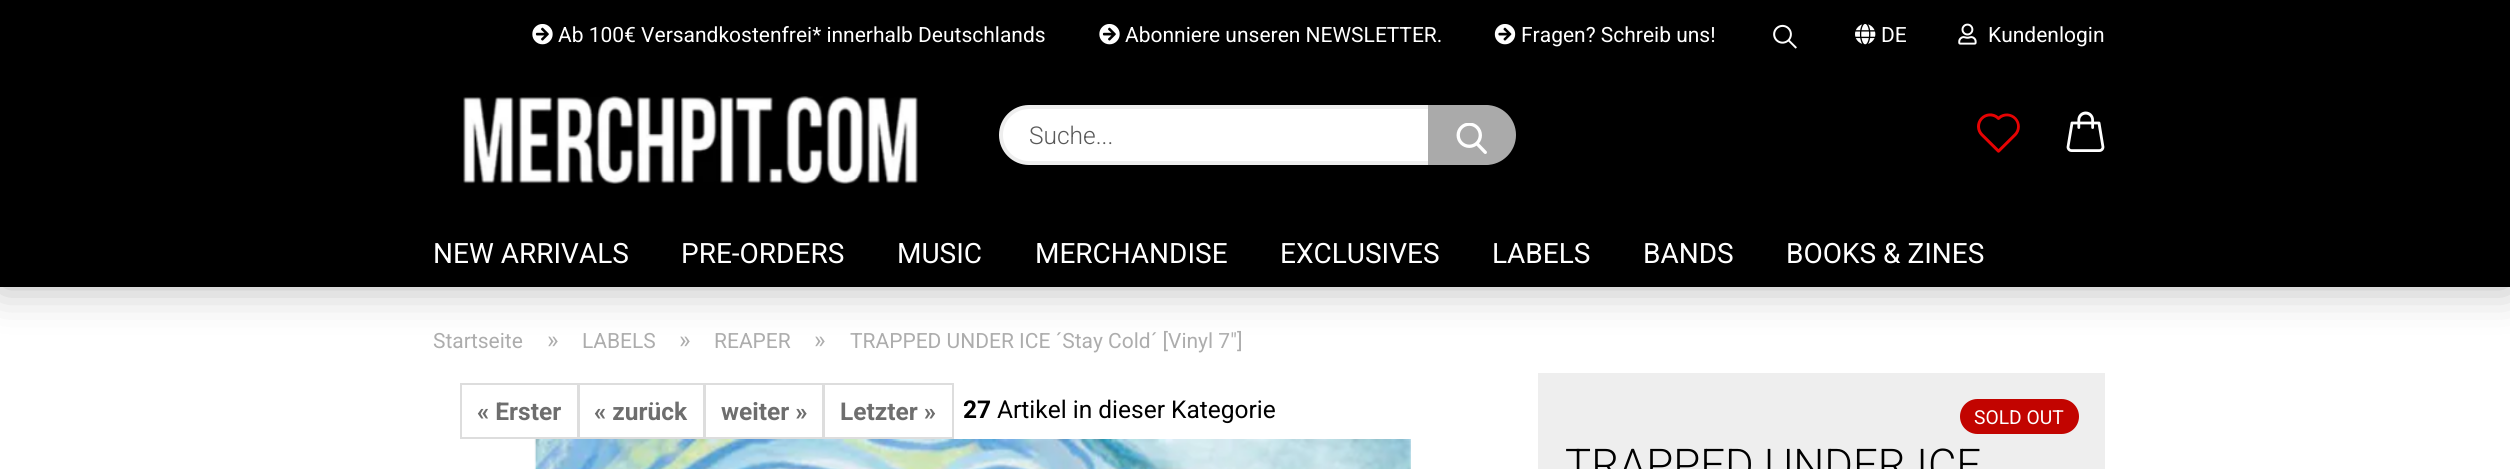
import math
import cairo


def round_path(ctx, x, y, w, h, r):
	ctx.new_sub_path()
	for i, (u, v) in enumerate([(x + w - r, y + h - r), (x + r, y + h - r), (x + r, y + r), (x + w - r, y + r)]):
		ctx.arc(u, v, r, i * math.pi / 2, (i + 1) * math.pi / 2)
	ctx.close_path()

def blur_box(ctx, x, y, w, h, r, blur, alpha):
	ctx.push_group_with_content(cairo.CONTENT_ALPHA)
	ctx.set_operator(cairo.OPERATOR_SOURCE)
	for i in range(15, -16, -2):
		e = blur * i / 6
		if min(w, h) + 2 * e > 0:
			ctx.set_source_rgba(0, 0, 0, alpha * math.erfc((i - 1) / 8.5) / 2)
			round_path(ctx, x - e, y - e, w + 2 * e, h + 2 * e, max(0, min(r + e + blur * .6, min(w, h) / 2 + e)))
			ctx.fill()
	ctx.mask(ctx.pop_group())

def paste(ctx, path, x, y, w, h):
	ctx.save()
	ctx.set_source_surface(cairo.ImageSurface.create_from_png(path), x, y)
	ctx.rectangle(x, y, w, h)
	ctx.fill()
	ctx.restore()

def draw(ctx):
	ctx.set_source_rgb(1, 1, 1)
	ctx.paint()
	ctx.set_source_rgb(0, 0, 0)
	blur_box(ctx, 0, 0, 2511, 287, 0, 22, 0.3)
	ctx.set_source_rgb(0, 0, 0)
	ctx.rectangle(0, 0, 2510, 287)
	ctx.fill()
	paste(ctx, 'media/1.png', 532, 24, 21, 21)
	ctx.select_font_face('Roboto')
	ctx.set_font_size(21)
	ctx.set_source_rgb(1, 1, 1)
	ctx.move_to(558, 42)
	ctx.show_text('Ab 100€ Versandkostenfrei* innerhalb Deutschlands')
	paste(ctx, 'media/1.png', 1099, 24, 21, 21)
	ctx.move_to(1125, 42)
	ctx.show_text('Abonniere unseren NEWSLETTER.')
	paste(ctx, 'media/2.png', 1494, 24, 22, 21)
	ctx.move_to(1521, 42)
	ctx.show_text('Fragen? Schreib uns!')
	paste(ctx, 'media/3.png', 1773, 24, 24, 25)
	paste(ctx, 'media/4.png', 1855, 24, 21, 21)
	ctx.move_to(1881, 42)
	ctx.show_text('DE')
	paste(ctx, 'media/5.png', 1958, 23, 19, 22)
	ctx.move_to(1988, 42)
	ctx.show_text('Kundenlogin')
	paste(ctx, 'media/6.png', 463, 96, 455, 88)
	round_path(ctx, 1001, 107, 509, 56, 28)
	ctx.fill_preserve()
	ctx.set_source_rgb(0.933, 0.933, 0.933)
	ctx.set_line_width(4)
	ctx.stroke()
	ctx.select_font_face('Roboto Light')
	ctx.set_font_size(24.5)
	ctx.set_source_rgb(0.349, 0.349, 0.349)
	ctx.move_to(1029, 144)
	ctx.show_text('Suche...')
	ctx.set_source_rgb(0.667, 0.667, 0.667)
	ctx.new_path()
	ctx.move_to(1428, 105)
	ctx.line_to(1486, 105)
	ctx.curve_to(1502.5, 105, 1516, 118.5, 1516, 135)
	ctx.curve_to(1516, 151.5, 1502.5, 165, 1486, 165)
	ctx.line_to(1428, 165)
	ctx.close_path()
	ctx.fill()
	paste(ctx, 'media/7.png', 1456, 123, 31, 31)
	paste(ctx, 'media/8.png', 1977, 113, 43, 40)
	paste(ctx, 'media/9.png', 2066, 111, 39, 41)
	ctx.select_font_face('Roboto')
	ctx.set_font_size(28)
	ctx.set_source_rgb(1, 1, 1)
	for x, y, s in [
		(433, 263, 'NEW ARRIVALS'),
		(681, 263, 'PRE-ORDERS'),
		(897, 263, 'MUSIC'),
		(1035, 263, 'MERCHANDISE'),
		(1280, 263, 'EXCLUSIVES'),
		(1492, 263, 'LABELS'),
		(1643, 263, 'BANDS'),
		(1786, 263, 'BOOKS & ZINES'),
	]:
		ctx.move_to(x, y)
		ctx.show_text(s)
	ctx.set_font_size(21)
	ctx.set_source_rgb(0.678, 0.678, 0.678)
	ctx.move_to(433, 348)
	ctx.show_text('Startseite')
	ctx.set_font_size(24.5)
	ctx.move_to(547, 348)
	ctx.show_text('»')
	ctx.set_font_size(21)
	ctx.move_to(582, 348)
	ctx.show_text('LABELS')
	ctx.set_font_size(24.5)
	ctx.move_to(679, 348)
	ctx.show_text('»')
	ctx.set_font_size(21)
	ctx.move_to(714, 348)
	ctx.show_text('REAPER')
	ctx.set_font_size(24.5)
	ctx.move_to(814, 348)
	ctx.show_text('»')
	ctx.set_font_size(21)
	ctx.move_to(850, 348)
	ctx.show_text('TRAPPED UNDER ICE ´Stay Cold´ [Vinyl 7"]')
	ctx.rectangle(461, 384, 117, 54)
	ctx.set_source_rgb(0.867, 0.867, 0.867)
	ctx.set_line_width(2)
	ctx.stroke()
	ctx.select_font_face('Roboto', cairo.FONT_SLANT_NORMAL, cairo.FONT_WEIGHT_BOLD)
	ctx.set_font_size(24.5)
	ctx.set_source_rgb(0.431, 0.431, 0.431)
	ctx.move_to(477, 420)
	ctx.show_text('« Erster')
	ctx.rectangle(579, 384, 125, 54)
	ctx.set_source_rgb(0.867, 0.867, 0.867)
	ctx.stroke()
	ctx.set_source_rgb(0.431, 0.431, 0.431)
	ctx.move_to(594, 420)
	ctx.show_text('« zurück')
	ctx.rectangle(705, 384, 118, 54)
	ctx.set_source_rgb(0.867, 0.867, 0.867)
	ctx.stroke()
	ctx.set_source_rgb(0.431, 0.431, 0.431)
	ctx.move_to(721, 420)
	ctx.show_text('weiter »')
	ctx.rectangle(824, 384, 129, 54)
	ctx.set_source_rgb(0.867, 0.867, 0.867)
	ctx.stroke()
	ctx.set_source_rgb(0.431, 0.431, 0.431)
	ctx.move_to(840, 420)
	ctx.show_text('Letzter »')
	ctx.set_source_rgb(0, 0, 0)
	ctx.move_to(963, 418)
	ctx.show_text('27')
	ctx.select_font_face('Roboto')
	ctx.move_to(997, 418)
	ctx.show_text('Artikel in dieser Kategorie')
	paste(ctx, 'media/10.png', 534, 439, 877, 30)
	ctx.set_source_rgb(0.933, 0.933, 0.933)
	ctx.rectangle(1538, 373, 567, 96)
	ctx.fill()
	ctx.set_source_rgb(0.761, 0.016, 0)
	round_path(ctx, 1960, 399, 119, 35, 17.5)
	ctx.fill()
	ctx.set_font_size(19.25)
	ctx.set_source_rgb(1, 1, 1)
	ctx.move_to(1974, 424)
	ctx.show_text('SOLD OUT')
	ctx.select_font_face('Roboto Light')
	ctx.set_font_size(43.75)
	ctx.set_source_rgb(0, 0, 0)
	ctx.move_to(1565, 480)
	ctx.show_text('TRAPPED UNDER ICE')


surface = cairo.ImageSurface(cairo.FORMAT_RGB24, 2510, 469)
ctx = cairo.Context(surface)
options = cairo.FontOptions()
options.set_hint_metrics(cairo.HINT_METRICS_OFF)
options.set_hint_style(cairo.HINT_STYLE_NONE)
ctx.set_font_options(options)
ctx.set_miter_limit(4)
draw(ctx)
surface.write_to_png('image.png')
